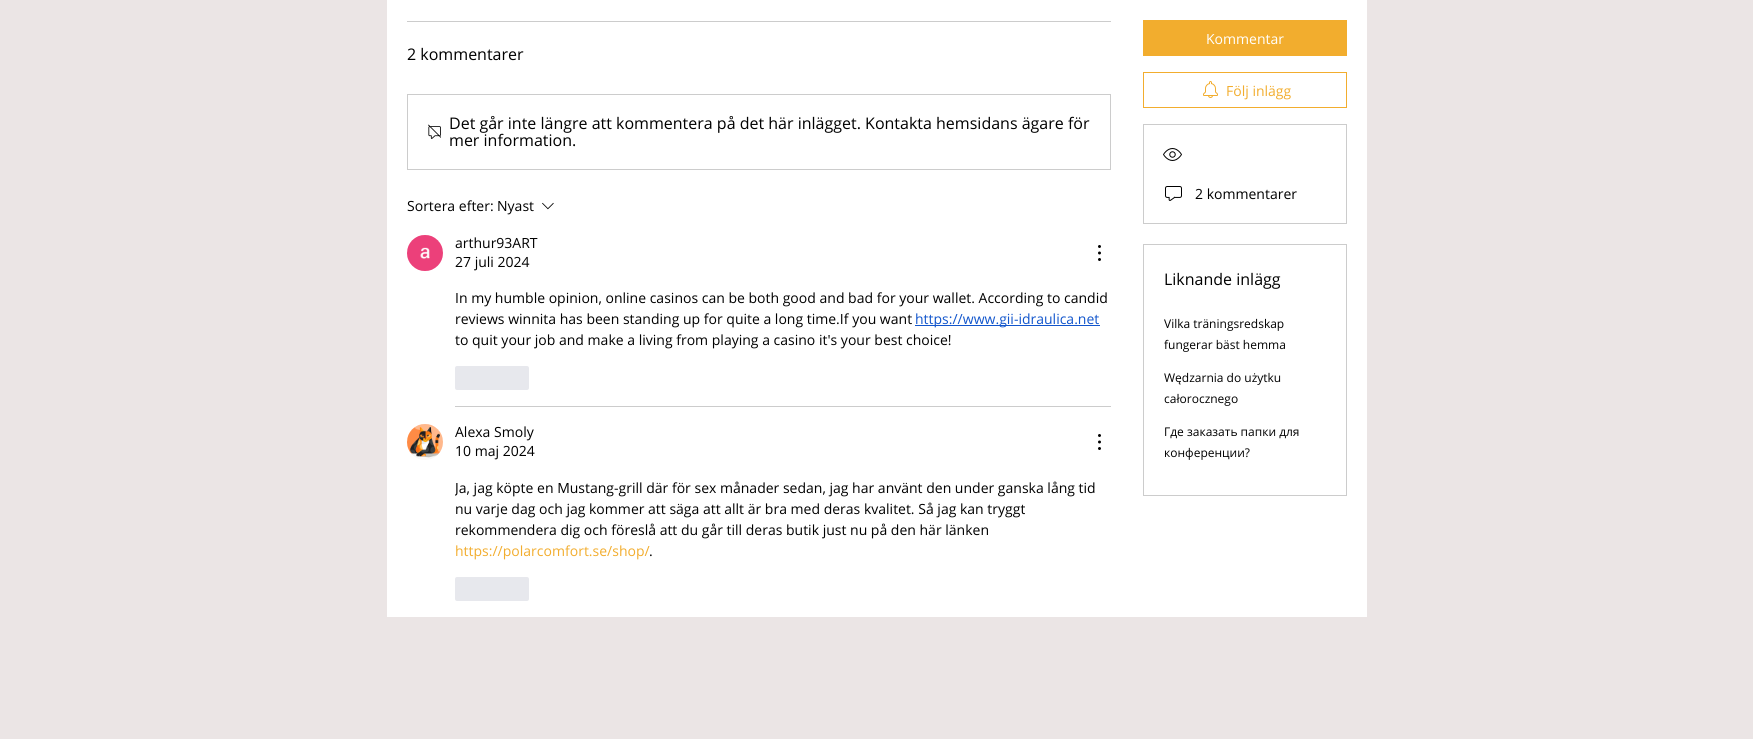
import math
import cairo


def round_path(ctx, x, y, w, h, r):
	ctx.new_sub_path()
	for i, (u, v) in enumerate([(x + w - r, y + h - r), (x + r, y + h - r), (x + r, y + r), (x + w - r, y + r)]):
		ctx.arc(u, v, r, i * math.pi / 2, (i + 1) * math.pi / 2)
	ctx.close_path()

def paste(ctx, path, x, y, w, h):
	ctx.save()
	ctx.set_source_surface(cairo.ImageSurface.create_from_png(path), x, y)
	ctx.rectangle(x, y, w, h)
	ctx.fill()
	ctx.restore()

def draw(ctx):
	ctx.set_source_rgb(0.918, 0.898, 0.898)
	ctx.paint()
	ctx.set_source_rgb(1, 1, 1)
	ctx.rectangle(387, 0, 980, 617)
	ctx.fill()
	ctx.set_source_rgb(0.8, 0.8, 0.8)
	ctx.rectangle(407, 21, 704, 1)
	ctx.fill()
	ctx.select_font_face('Open Sans')
	ctx.set_font_size(16)
	ctx.set_source_rgb(0, 0, 0)
	ctx.move_to(407, 60)
	ctx.show_text('2 kommentarer')
	ctx.rectangle(407.5, 94.5, 703, 75)
	ctx.set_source_rgb(0.8, 0.8, 0.8)
	ctx.set_line_width(1)
	ctx.stroke()
	paste(ctx, 'media/1.png', 428, 124, 13, 15)
	ctx.set_source_rgb(0, 0, 0)
	ctx.move_to(449, 129)
	ctx.show_text('Det går inte längre att kommentera på det här inlägget. Kontakta hemsidans ägare för')
	ctx.move_to(449, 146)
	ctx.show_text('mer information.')
	ctx.set_font_size(14)
	ctx.move_to(407, 211)
	ctx.show_text('Sortera efter:')
	ctx.move_to(497, 211)
	ctx.show_text('Nyast')
	paste(ctx, 'media/2.png', 542, 202, 12, 8)
	paste(ctx, 'media/3.png', 407, 235, 36, 36)
	ctx.move_to(455, 248)
	ctx.show_text('arthur93ART')
	ctx.move_to(455, 267)
	ctx.show_text('27 juli 2024')
	paste(ctx, 'media/4.png', 1098, 245, 3, 16)
	ctx.move_to(455, 303)
	ctx.show_text('In my humble opinion, online casinos can be both good and bad for your wallet. According to candid')
	ctx.move_to(455, 324)
	ctx.show_text('reviews winnita has been standing up for quite a long time.If you want')
	ctx.set_source_rgb(0.067, 0.333, 0.8)
	ctx.rectangle(915, 325, 185, 1)
	ctx.fill()
	ctx.move_to(915, 324)
	ctx.show_text('https://www.gii-idraulica.net')
	ctx.set_source_rgb(0, 0, 0)
	ctx.move_to(455, 345)
	ctx.show_text('to quit your job and make a living from playing a casino it\'s your best choice!')
	ctx.set_source_rgb(0.906, 0.91, 0.929)
	round_path(ctx, 455, 366, 74, 24, 2)
	ctx.fill()
	ctx.set_source_rgb(0.8, 0.8, 0.8)
	ctx.rectangle(455, 406, 656, 1)
	ctx.fill()
	paste(ctx, 'media/5.png', 407, 424, 36, 36)
	ctx.set_source_rgb(0, 0, 0)
	ctx.move_to(455, 437)
	ctx.show_text('Alexa Smoly')
	ctx.move_to(455, 456)
	ctx.show_text('10 maj 2024')
	paste(ctx, 'media/4.png', 1098, 434, 3, 16)
	ctx.save()
	ctx.rectangle(455, 477, 656, 84)
	ctx.clip()
	ctx.move_to(455, 493)
	ctx.show_text('Ja, jag köpte en Mustang-grill där för sex månader sedan, jag har använt den under ganska lång tid')
	ctx.restore()
	ctx.move_to(455, 514)
	ctx.show_text('nu varje dag och jag kommer att säga att allt är bra med deras kvalitet. Så jag kan tryggt')
	ctx.move_to(455, 535)
	ctx.show_text('rekommendera dig och föreslå att du går till deras butik just nu på den här länken')
	ctx.set_source_rgb(0.949, 0.678, 0.18)
	ctx.move_to(455, 556)
	ctx.show_text('https://polarcomfort.se/shop/')
	ctx.set_source_rgb(0, 0, 0)
	ctx.move_to(649, 556)
	ctx.show_text('.')
	ctx.set_source_rgb(0.906, 0.91, 0.929)
	round_path(ctx, 455, 577, 74, 24, 2)
	ctx.fill()
	ctx.set_source_rgb(0.949, 0.678, 0.18)
	ctx.rectangle(1143, 20, 204, 36)
	ctx.fill()
	ctx.set_source_rgb(1, 1, 1)
	ctx.move_to(1206, 44)
	ctx.show_text('Kommentar')
	ctx.rectangle(1143.5, 72.5, 203, 35)
	ctx.set_source_rgb(0.949, 0.678, 0.18)
	ctx.stroke()
	paste(ctx, 'media/6.png', 1203, 81, 15, 17)
	ctx.move_to(1226, 96)
	ctx.show_text('Följ inlägg')
	ctx.rectangle(1143.5, 124.5, 203, 99)
	ctx.set_source_rgb(0.8, 0.8, 0.8)
	ctx.stroke()
	paste(ctx, 'media/7.png', 1163, 148, 19, 13)
	paste(ctx, 'media/8.png', 1165, 186, 17, 15)
	ctx.set_source_rgb(0, 0, 0)
	ctx.move_to(1195, 199)
	ctx.show_text('2 kommentarer')
	ctx.rectangle(1143.5, 244.5, 203, 251)
	ctx.set_source_rgb(0.8, 0.8, 0.8)
	ctx.stroke()
	ctx.set_font_size(16)
	ctx.set_source_rgb(0, 0, 0)
	ctx.move_to(1164, 285)
	ctx.show_text('Liknande inlägg')
	ctx.set_font_size(12)
	for x, y, s in [
		(1164, 328, 'Vilka träningsredskap'),
		(1164, 349, 'fungerar bäst hemma'),
		(1164, 382, 'Wędzarnia do użytku'),
		(1164, 403, 'całorocznego'),
		(1164, 436, 'Где заказать папки для'),
		(1164, 457, 'конференции?'),
	]:
		ctx.move_to(x, y)
		ctx.show_text(s)


surface = cairo.ImageSurface(cairo.FORMAT_RGB24, 1753, 739)
ctx = cairo.Context(surface)
options = cairo.FontOptions()
options.set_hint_metrics(cairo.HINT_METRICS_OFF)
options.set_hint_style(cairo.HINT_STYLE_NONE)
ctx.set_font_options(options)
ctx.set_miter_limit(4)
draw(ctx)
surface.write_to_png('image.png')
